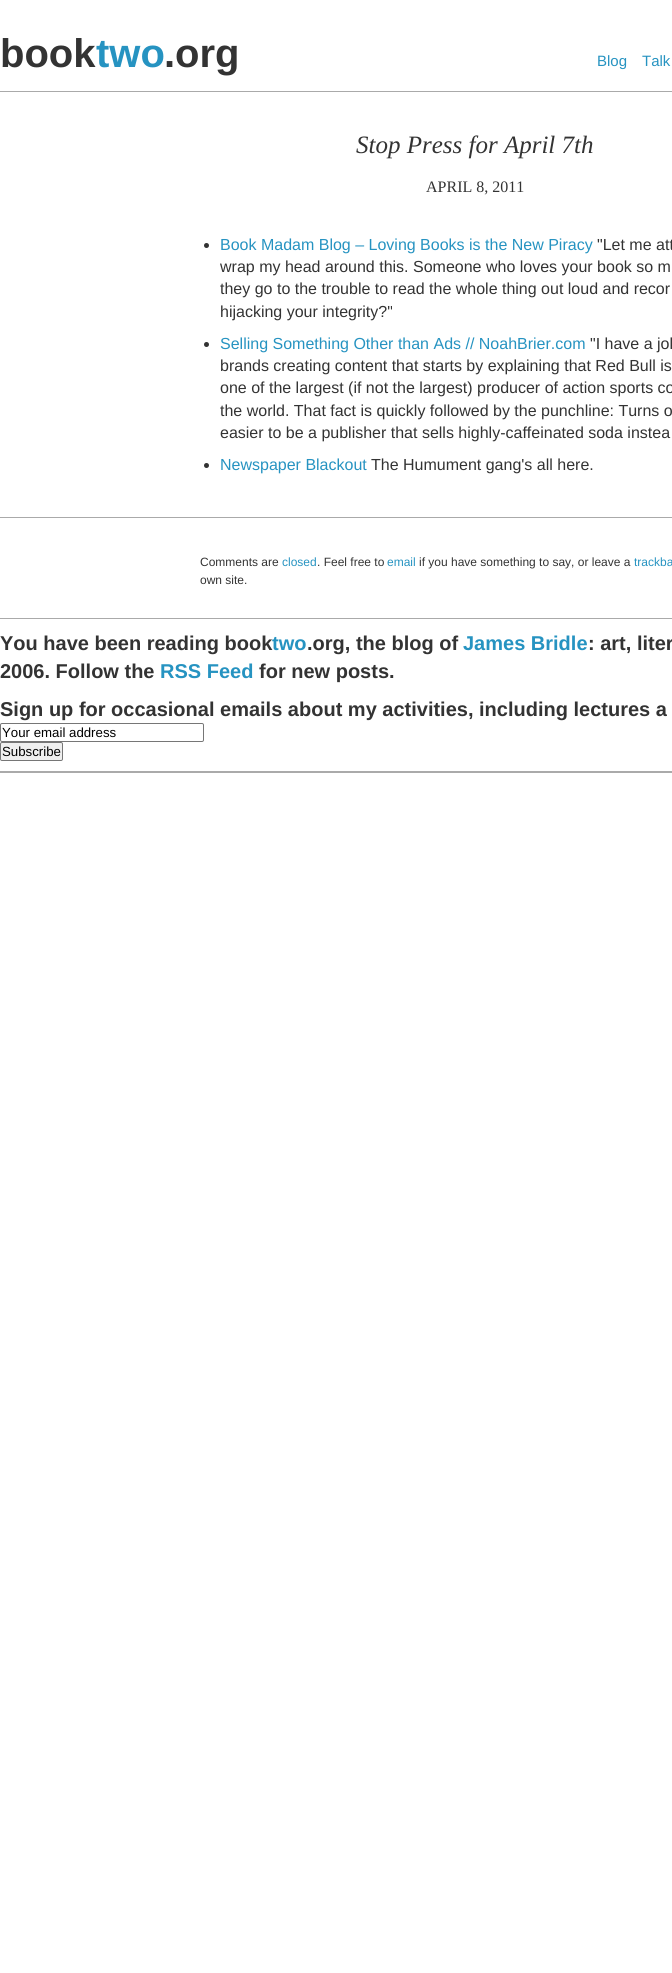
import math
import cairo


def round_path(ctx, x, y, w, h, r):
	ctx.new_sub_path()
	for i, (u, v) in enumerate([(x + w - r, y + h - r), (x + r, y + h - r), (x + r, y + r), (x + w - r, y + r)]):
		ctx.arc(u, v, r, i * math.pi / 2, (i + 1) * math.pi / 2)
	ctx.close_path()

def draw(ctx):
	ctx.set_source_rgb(1, 1, 1)
	ctx.paint()
	ctx.set_source_rgb(0.667, 0.667, 0.667)
	ctx.rectangle(0, 91, 672, 1)
	ctx.fill()
	ctx.select_font_face('Liberation Sans', cairo.FONT_SLANT_NORMAL, cairo.FONT_WEIGHT_BOLD)
	ctx.set_font_size(40)
	ctx.set_source_rgb(0.2, 0.2, 0.2)
	ctx.move_to(0, 67)
	ctx.show_text('book')
	ctx.set_source_rgb(0.149, 0.576, 0.757)
	ctx.move_to(96, 67)
	ctx.show_text('two')
	ctx.set_source_rgb(0.2, 0.2, 0.2)
	ctx.move_to(164, 67)
	ctx.show_text('.org')
	ctx.select_font_face('Liberation Sans')
	ctx.set_font_size(15)
	ctx.set_source_rgb(0.149, 0.576, 0.757)
	ctx.move_to(597, 66)
	ctx.show_text('Blog')
	ctx.move_to(642, 66)
	ctx.show_text('Talk')
	ctx.set_source_rgb(0.667, 0.667, 0.667)
	ctx.rectangle(0, 618, 672, 1)
	ctx.fill()
	ctx.select_font_face('Liberation Serif', cairo.FONT_SLANT_ITALIC)
	ctx.set_font_size(25)
	ctx.set_source_rgb(0.2, 0.2, 0.2)
	ctx.move_to(356, 153)
	ctx.show_text('Stop Press for April 7th')
	ctx.select_font_face('Liberation Serif')
	ctx.set_font_size(16)
	ctx.move_to(426, 192)
	ctx.show_text('APRIL 8, 2011')
	ctx.new_path()
	ctx.arc(206.5, 245.5, 2.5, 0, 2 * math.pi)
	ctx.fill()
	ctx.select_font_face('Liberation Sans')
	ctx.set_source_rgb(0.149, 0.576, 0.757)
	ctx.move_to(220, 250)
	ctx.show_text('Book Madam Blog – Loving Books is the New Piracy')
	ctx.set_source_rgb(0.2, 0.2, 0.2)
	for x, y, s in [
		(597, 250, '"Let me att'),
		(220, 272, 'wrap my head around this. Someone who loves your book so m'),
		(220, 294, 'they go to the trouble to read the whole thing out loud and recor'),
		(220, 317, 'hijacking your integrity?"'),
	]:
		ctx.move_to(x, y)
		ctx.show_text(s)
	ctx.new_path()
	ctx.arc(206.5, 344.5, 2.5, 0, 2 * math.pi)
	ctx.fill()
	ctx.set_source_rgb(0.149, 0.576, 0.757)
	ctx.move_to(220, 349)
	ctx.show_text('Selling Something Other than Ads // NoahBrier.com')
	ctx.set_source_rgb(0.2, 0.2, 0.2)
	for x, y, s in [
		(590, 349, '"I have a jok'),
		(220, 371, 'brands creating content that starts by explaining that Red Bull is'),
		(220, 393, 'one of the largest (if not the largest) producer of action sports co'),
		(220, 416, 'the world. That fact is quickly followed by the punchline: Turns o'),
		(220, 438, 'easier to be a publisher that sells highly-caffeinated soda instea'),
	]:
		ctx.move_to(x, y)
		ctx.show_text(s)
	ctx.new_path()
	ctx.arc(206.5, 465.5, 2.5, 0, 2 * math.pi)
	ctx.fill()
	ctx.set_source_rgb(0.149, 0.576, 0.757)
	ctx.move_to(220, 470)
	ctx.show_text('Newspaper Blackout')
	ctx.set_source_rgb(0.2, 0.2, 0.2)
	ctx.move_to(371, 470)
	ctx.show_text('The Humument gang\'s all here.')
	ctx.set_source_rgb(0.667, 0.667, 0.667)
	ctx.rectangle(0, 517, 672, 1)
	ctx.fill()
	ctx.set_font_size(12)
	ctx.set_source_rgb(0.2, 0.2, 0.2)
	ctx.move_to(200, 566)
	ctx.show_text('Comments are')
	ctx.set_source_rgb(0.149, 0.576, 0.757)
	ctx.move_to(282, 566)
	ctx.show_text('closed')
	ctx.set_source_rgb(0.2, 0.2, 0.2)
	ctx.move_to(317, 566)
	ctx.show_text('. Feel free to')
	ctx.set_source_rgb(0.149, 0.576, 0.757)
	ctx.move_to(387, 566)
	ctx.show_text('email')
	ctx.set_source_rgb(0.2, 0.2, 0.2)
	ctx.move_to(419, 566)
	ctx.show_text('if you have something to say, or leave a')
	ctx.set_source_rgb(0.149, 0.576, 0.757)
	ctx.move_to(634, 566)
	ctx.show_text('trackba')
	ctx.set_source_rgb(0.2, 0.2, 0.2)
	ctx.move_to(200, 584)
	ctx.show_text('own site.')
	ctx.set_source_rgb(0.667, 0.667, 0.667)
	ctx.rectangle(0, 771, 672, 2)
	ctx.fill()
	ctx.select_font_face('Liberation Sans', cairo.FONT_SLANT_NORMAL, cairo.FONT_WEIGHT_BOLD)
	ctx.set_font_size(20)
	ctx.set_source_rgb(0.2, 0.2, 0.2)
	ctx.move_to(0, 650)
	ctx.show_text('You have been reading book')
	ctx.set_source_rgb(0.149, 0.576, 0.757)
	ctx.move_to(272, 650)
	ctx.show_text('two')
	ctx.set_source_rgb(0.2, 0.2, 0.2)
	ctx.move_to(307, 650)
	ctx.show_text('.org, the blog of')
	ctx.set_source_rgb(0.149, 0.576, 0.757)
	ctx.move_to(463, 650)
	ctx.show_text('James Bridle')
	ctx.set_source_rgb(0.2, 0.2, 0.2)
	ctx.move_to(588, 650)
	ctx.show_text(': art, liter')
	ctx.move_to(0, 678)
	ctx.show_text('2006. Follow the')
	ctx.set_source_rgb(0.149, 0.576, 0.757)
	ctx.move_to(160, 678)
	ctx.show_text('RSS Feed')
	ctx.set_source_rgb(0.2, 0.2, 0.2)
	ctx.move_to(259, 678)
	ctx.show_text('for new posts.')
	ctx.move_to(0, 716)
	ctx.show_text('Sign up for occasional emails about my activities, including lectures a')
	round_path(ctx, 0.5, 723.5, 203, 18, 1.5)
	ctx.set_source_rgb(0.463, 0.463, 0.463)
	ctx.set_line_width(1)
	ctx.stroke()
	ctx.select_font_face('Liberation Sans')
	ctx.set_font_size(13.25)
	ctx.set_source_rgb(0, 0, 0)
	ctx.move_to(2, 737)
	ctx.show_text('Your email address')
	ctx.set_source_rgb(0.937, 0.937, 0.937)
	round_path(ctx, 0.5, 742.5, 62, 18, 1.5)
	ctx.fill_preserve()
	ctx.set_source_rgb(0.463, 0.463, 0.463)
	ctx.stroke()
	ctx.set_source_rgb(0, 0, 0)
	ctx.move_to(2, 756)
	ctx.show_text('Subscribe')


surface = cairo.ImageSurface(cairo.FORMAT_RGB24, 672, 1973)
ctx = cairo.Context(surface)
options = cairo.FontOptions()
options.set_hint_metrics(cairo.HINT_METRICS_OFF)
options.set_hint_style(cairo.HINT_STYLE_NONE)
ctx.set_font_options(options)
ctx.set_miter_limit(4)
draw(ctx)
surface.write_to_png('image.png')
